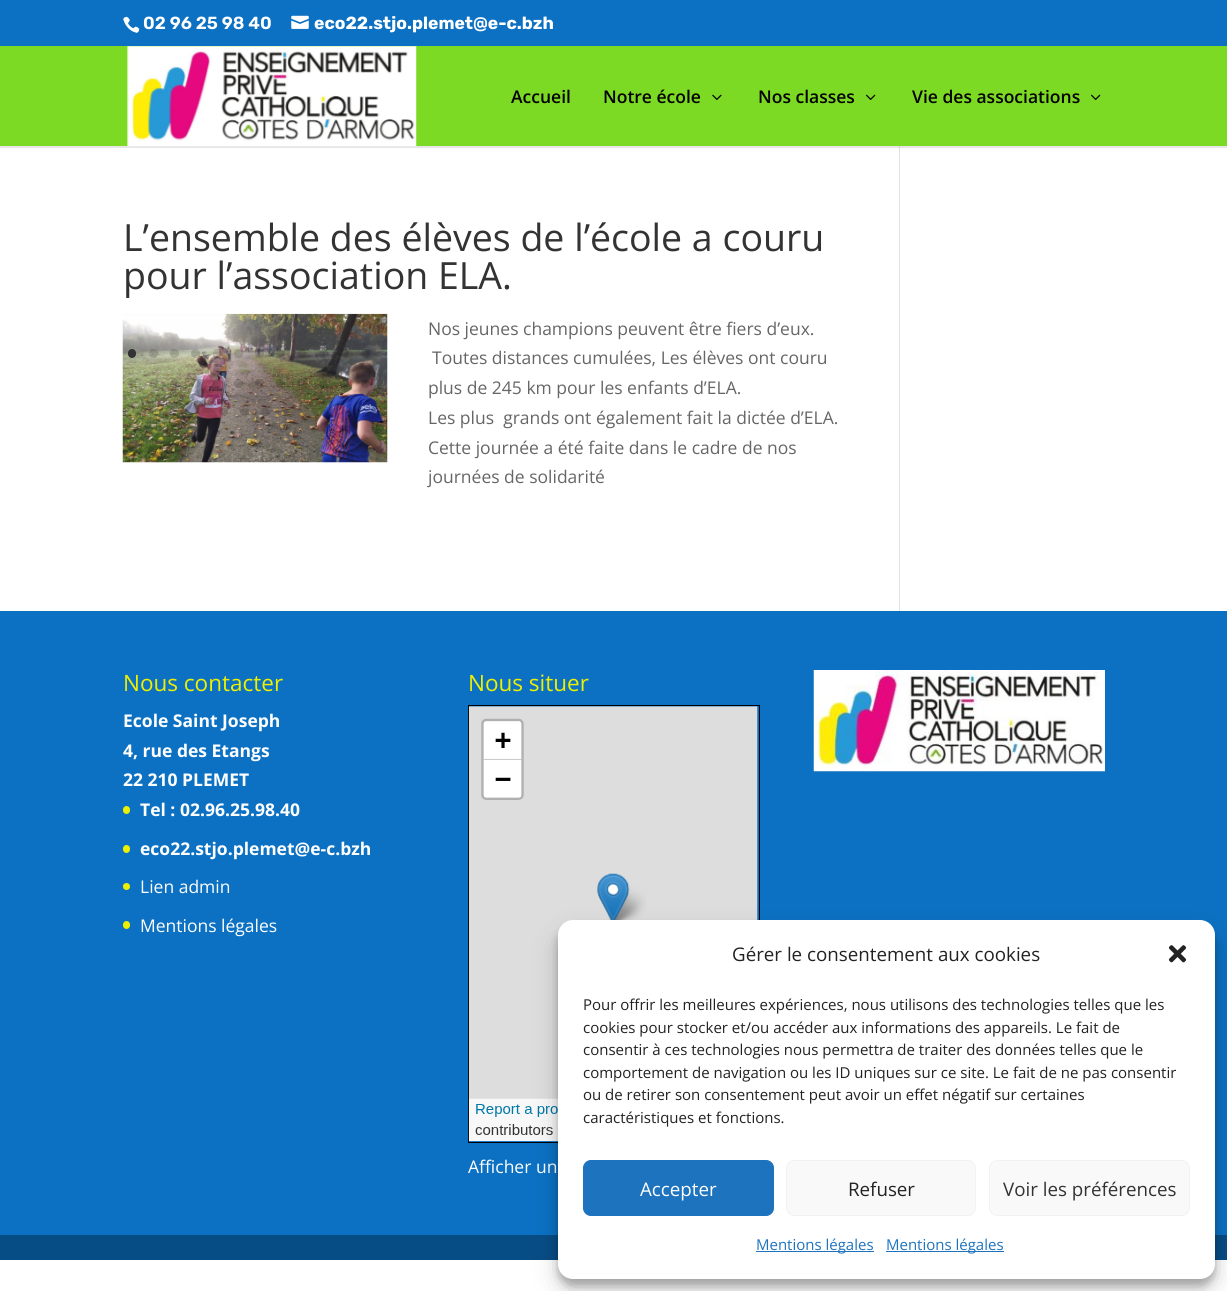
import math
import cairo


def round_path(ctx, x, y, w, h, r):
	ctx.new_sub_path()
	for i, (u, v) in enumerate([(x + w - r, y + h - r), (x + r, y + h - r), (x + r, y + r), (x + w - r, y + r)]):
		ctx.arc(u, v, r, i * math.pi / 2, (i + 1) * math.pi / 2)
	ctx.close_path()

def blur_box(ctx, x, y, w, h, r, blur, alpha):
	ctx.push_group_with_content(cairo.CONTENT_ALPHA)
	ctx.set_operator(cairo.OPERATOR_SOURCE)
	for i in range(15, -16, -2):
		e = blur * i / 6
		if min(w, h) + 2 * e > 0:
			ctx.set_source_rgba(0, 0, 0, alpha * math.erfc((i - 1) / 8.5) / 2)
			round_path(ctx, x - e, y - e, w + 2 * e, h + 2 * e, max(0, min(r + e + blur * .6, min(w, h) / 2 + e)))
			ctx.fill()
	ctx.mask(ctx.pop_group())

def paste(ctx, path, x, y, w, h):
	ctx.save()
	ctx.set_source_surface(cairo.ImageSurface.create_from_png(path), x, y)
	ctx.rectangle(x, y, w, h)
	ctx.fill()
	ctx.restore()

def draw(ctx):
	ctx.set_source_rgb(1, 1, 1)
	ctx.paint()
	ctx.set_source_rgb(0.047, 0.443, 0.765)
	ctx.rectangle(0, 0, 1227, 46)
	ctx.fill()
	paste(ctx, 'media/1.png', 123, 16, 17, 17)
	ctx.select_font_face('Rubik SemiBold')
	ctx.set_font_size(17.5)
	ctx.set_source_rgb(1, 1, 1)
	ctx.move_to(143, 29)
	ctx.show_text('02 96 25 98 40')
	paste(ctx, 'media/2.png', 291, 15, 18, 14)
	ctx.select_font_face('Rubik', cairo.FONT_SLANT_NORMAL, cairo.FONT_WEIGHT_BOLD)
	ctx.move_to(314, 29)
	ctx.show_text('eco22.stjo.plemet@e-c.bzh')
	ctx.set_source_rgb(0.886, 0.886, 0.886)
	ctx.rectangle(899, 146, 1, 465)
	ctx.fill()
	ctx.set_source_rgba(0, 0, 0, 0.1)
	ctx.new_path()
	ctx.move_to(0, 146)
	ctx.line_to(0, 148)
	ctx.line_to(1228, 148)
	ctx.line_to(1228, 48)
	ctx.line_to(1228, 146)
	ctx.close_path()
	ctx.fill()
	ctx.set_source_rgb(0.486, 0.855, 0.141)
	ctx.rectangle(0, 46, 1227, 100)
	ctx.fill()
	paste(ctx, 'media/3.png', 127, 46, 290, 101)
	ctx.select_font_face('Open Sans SemiBold')
	ctx.set_source_rgb(0, 0, 0)
	ctx.move_to(511, 103)
	ctx.show_text('Accueil')
	ctx.move_to(603, 103)
	ctx.show_text('Notre école')
	paste(ctx, 'media/4.png', 712, 94, 10, 6)
	ctx.move_to(758, 103)
	ctx.show_text('Nos classes')
	paste(ctx, 'media/5.png', 866, 94, 10, 6)
	ctx.move_to(912, 103)
	ctx.show_text('Vie des associations')
	paste(ctx, 'media/5.png', 1091, 94, 10, 6)
	ctx.select_font_face('Open Sans')
	ctx.set_font_size(37.5)
	ctx.set_source_rgb(0.2, 0.2, 0.2)
	ctx.move_to(123, 251)
	ctx.show_text('L’ensemble des élèves de l’école a couru')
	ctx.move_to(123, 289)
	ctx.show_text('pour l’association ELA.')
	paste(ctx, 'media/6.png', 122, 313, 266, 150)
	round_path(ctx, 128, 349, 8, 9, 4)
	ctx.fill()
	ctx.set_source_rgba(0, 0, 0, 0.15)
	ctx.arc(153.5, 353.5, 4.5, 0, 2 * math.pi)
	ctx.fill()
	ctx.arc(174.5, 353.5, 4.5, 0, 2 * math.pi)
	ctx.fill()
	ctx.arc(195.5, 353.5, 4.5, 0, 2 * math.pi)
	ctx.fill()
	round_path(ctx, 213, 349, 8, 9, 4)
	ctx.fill()
	ctx.arc(238.5, 353.5, 4.5, 0, 2 * math.pi)
	ctx.fill()
	ctx.arc(259.5, 353.5, 4.5, 0, 2 * math.pi)
	ctx.fill()
	ctx.arc(280.5, 353.5, 4.5, 0, 2 * math.pi)
	ctx.fill()
	round_path(ctx, 298, 349, 8, 9, 4)
	ctx.fill()
	ctx.arc(323.5, 353.5, 4.5, 0, 2 * math.pi)
	ctx.fill()
	ctx.arc(344.5, 353.5, 4.5, 0, 2 * math.pi)
	ctx.fill()
	ctx.arc(365.5, 353.5, 4.5, 0, 2 * math.pi)
	ctx.fill()
	round_path(ctx, 128, 379, 8, 9, 4)
	ctx.fill()
	ctx.arc(153.5, 383.5, 4.5, 0, 2 * math.pi)
	ctx.fill()
	ctx.arc(174.5, 383.5, 4.5, 0, 2 * math.pi)
	ctx.fill()
	ctx.arc(195.5, 383.5, 4.5, 0, 2 * math.pi)
	ctx.fill()
	round_path(ctx, 213, 379, 8, 9, 4)
	ctx.fill()
	ctx.arc(238.5, 383.5, 4.5, 0, 2 * math.pi)
	ctx.fill()
	ctx.arc(259.5, 383.5, 4.5, 0, 2 * math.pi)
	ctx.fill()
	ctx.arc(280.5, 383.5, 4.5, 0, 2 * math.pi)
	ctx.fill()
	round_path(ctx, 298, 379, 8, 9, 4)
	ctx.fill()
	ctx.arc(323.5, 383.5, 4.5, 0, 2 * math.pi)
	ctx.fill()
	ctx.arc(344.5, 383.5, 4.5, 0, 2 * math.pi)
	ctx.fill()
	ctx.arc(365.5, 383.5, 4.5, 0, 2 * math.pi)
	ctx.fill()
	round_path(ctx, 219, 408, 9, 8, 4)
	ctx.fill()
	round_path(ctx, 240, 408, 9, 8, 4)
	ctx.fill()
	round_path(ctx, 261, 408, 9, 8, 4)
	ctx.fill()
	ctx.arc(287, 412, 4, 0, 2 * math.pi)
	ctx.fill()
	ctx.set_font_size(17.5)
	ctx.set_source_rgb(0.4, 0.4, 0.4)
	for x, y, s in [
		(428, 335, 'Nos jeunes champions peuvent être fiers d’eux.'),
		(432, 364, 'Toutes distances cumulées, Les élèves ont couru'),
		(428, 394, 'plus de 245 km pour les enfants d’ELA.'),
		(428, 424, 'Les plus  grands ont également fait la dictée d’ELA.'),
		(428, 454, 'Cette journée a été faite dans le cadre de nos'),
		(428, 483, 'journées de solidarité'),
	]:
		ctx.move_to(x, y)
		ctx.show_text(s)
	ctx.set_source_rgb(0.047, 0.443, 0.765)
	ctx.rectangle(0, 611, 1227, 624)
	ctx.fill()
	ctx.set_font_size(22.5)
	ctx.set_source_rgb(0.929, 0.941, 0)
	ctx.move_to(123, 691)
	ctx.show_text('Nous contacter')
	ctx.select_font_face('Open Sans', cairo.FONT_SLANT_NORMAL, cairo.FONT_WEIGHT_BOLD)
	ctx.set_font_size(17.5)
	ctx.set_source_rgb(1, 1, 1)
	for x, y, s in [
		(123, 727, 'Ecole Saint Joseph'),
		(123, 757, '4, rue des Etangs'),
		(123, 786, '22 210 PLEMET'),
	]:
		ctx.move_to(x, y)
		ctx.show_text(s)
	ctx.set_source_rgb(0.929, 0.941, 0)
	round_path(ctx, 123, 806, 7, 8, 3.5)
	ctx.fill()
	ctx.set_source_rgb(1, 1, 1)
	ctx.move_to(140, 816)
	ctx.show_text('Tel : 02.96.25.98.40')
	ctx.set_source_rgb(0.929, 0.941, 0)
	round_path(ctx, 123, 845, 7, 8, 3.5)
	ctx.fill()
	ctx.set_source_rgb(1, 1, 1)
	ctx.move_to(140, 855)
	ctx.show_text('eco22.stjo.plemet@e-c.bzh')
	ctx.set_source_rgb(0.929, 0.941, 0)
	ctx.new_path()
	ctx.arc(126.5, 886.5, 3.5, 0, 2 * math.pi)
	ctx.fill()
	ctx.select_font_face('Open Sans')
	ctx.set_source_rgb(1, 1, 1)
	ctx.move_to(140, 893)
	ctx.show_text('Lien admin')
	ctx.set_source_rgb(0.929, 0.941, 0)
	round_path(ctx, 123, 921, 7, 8, 3.5)
	ctx.fill()
	ctx.set_source_rgb(1, 1, 1)
	ctx.move_to(140, 932)
	ctx.show_text('Mentions légales')
	ctx.set_font_size(22.5)
	ctx.set_source_rgb(0.929, 0.941, 0)
	ctx.move_to(468, 691)
	ctx.show_text('Nous situer')
	ctx.rectangle(468.5, 705.5, 291, 437)
	ctx.set_source_rgb(0, 0, 0)
	ctx.set_line_width(1)
	ctx.stroke()
	paste(ctx, 'media/7.png', 468, 706, 290, 436)
	ctx.set_font_size(17.5)
	ctx.set_source_rgb(1, 1, 1)
	ctx.move_to(468, 1173)
	ctx.show_text('Afficher un')
	paste(ctx, 'media/8.png', 813, 670, 292, 102)
	ctx.set_source_rgb(0.031, 0.302, 0.522)
	ctx.rectangle(0, 1235, 1227, 25)
	ctx.fill()
	ctx.set_source_rgb(0, 0, 0)
	blur_box(ctx, 558, 928, 657, 358, 15, 4, 0.23)
	blur_box(ctx, 558, 933, 657, 358, 15, 12.5, 0.19)
	ctx.set_source_rgb(1, 1, 1)
	round_path(ctx, 558, 920, 657, 359, 15)
	ctx.fill()
	ctx.set_font_size(18.75)
	ctx.set_source_rgb(0.133, 0.133, 0.133)
	ctx.move_to(732, 961)
	ctx.show_text('Gérer le consentement aux cookies')
	paste(ctx, 'media/9.png', 1168, 945, 19, 18)
	ctx.set_font_size(15)
	for x, y, s in [
		(583, 1010, 'Pour offrir les meilleures expériences, nous utilisons des technologies telles que les'),
		(583, 1033, 'cookies pour stocker et/ou accéder aux informations des appareils. Le fait de'),
		(583, 1055, 'consentir à ces technologies nous permettra de traiter des données telles que le'),
		(583, 1078, 'comportement de navigation ou les ID uniques sur ce site. Le fait de ne pas consentir'),
		(583, 1100, 'ou de retirer son consentement peut avoir un effet négatif sur certaines'),
		(583, 1123, 'caractéristiques et fonctions.'),
	]:
		ctx.move_to(x, y)
		ctx.show_text(s)
	ctx.set_source_rgb(0.118, 0.451, 0.745)
	round_path(ctx, 583.5, 1160.5, 190, 55, 7.5)
	ctx.fill_preserve()
	ctx.stroke()
	ctx.set_font_size(18.75)
	ctx.set_source_rgb(1, 1, 1)
	ctx.move_to(640, 1196)
	ctx.show_text('Accepter')
	ctx.set_source_rgb(0.976, 0.976, 0.976)
	round_path(ctx, 786.5, 1160.5, 189, 55, 7.5)
	ctx.fill_preserve()
	ctx.set_source_rgb(0.949, 0.949, 0.949)
	ctx.stroke()
	ctx.set_source_rgb(0.133, 0.133, 0.133)
	ctx.move_to(848, 1196)
	ctx.show_text('Refuser')
	ctx.set_source_rgb(0.976, 0.976, 0.976)
	round_path(ctx, 989.5, 1160.5, 200, 55, 7.5)
	ctx.fill_preserve()
	ctx.set_source_rgb(0.949, 0.949, 0.949)
	ctx.stroke()
	ctx.set_source_rgb(0.2, 0.2, 0.2)
	ctx.move_to(1003, 1196)
	ctx.show_text('Voir les préférences')
	ctx.set_source_rgb(0.118, 0.451, 0.745)
	ctx.rectangle(756, 1251, 118, 1)
	ctx.fill()
	ctx.set_font_size(15)
	ctx.move_to(756, 1250)
	ctx.show_text('Mentions légales')
	ctx.rectangle(886, 1251, 118, 1)
	ctx.fill()
	ctx.move_to(886, 1250)
	ctx.show_text('Mentions légales')


surface = cairo.ImageSurface(cairo.FORMAT_RGB24, 1227, 1291)
ctx = cairo.Context(surface)
options = cairo.FontOptions()
options.set_hint_metrics(cairo.HINT_METRICS_OFF)
options.set_hint_style(cairo.HINT_STYLE_NONE)
ctx.set_font_options(options)
ctx.set_miter_limit(4)
draw(ctx)
surface.write_to_png('image.png')
